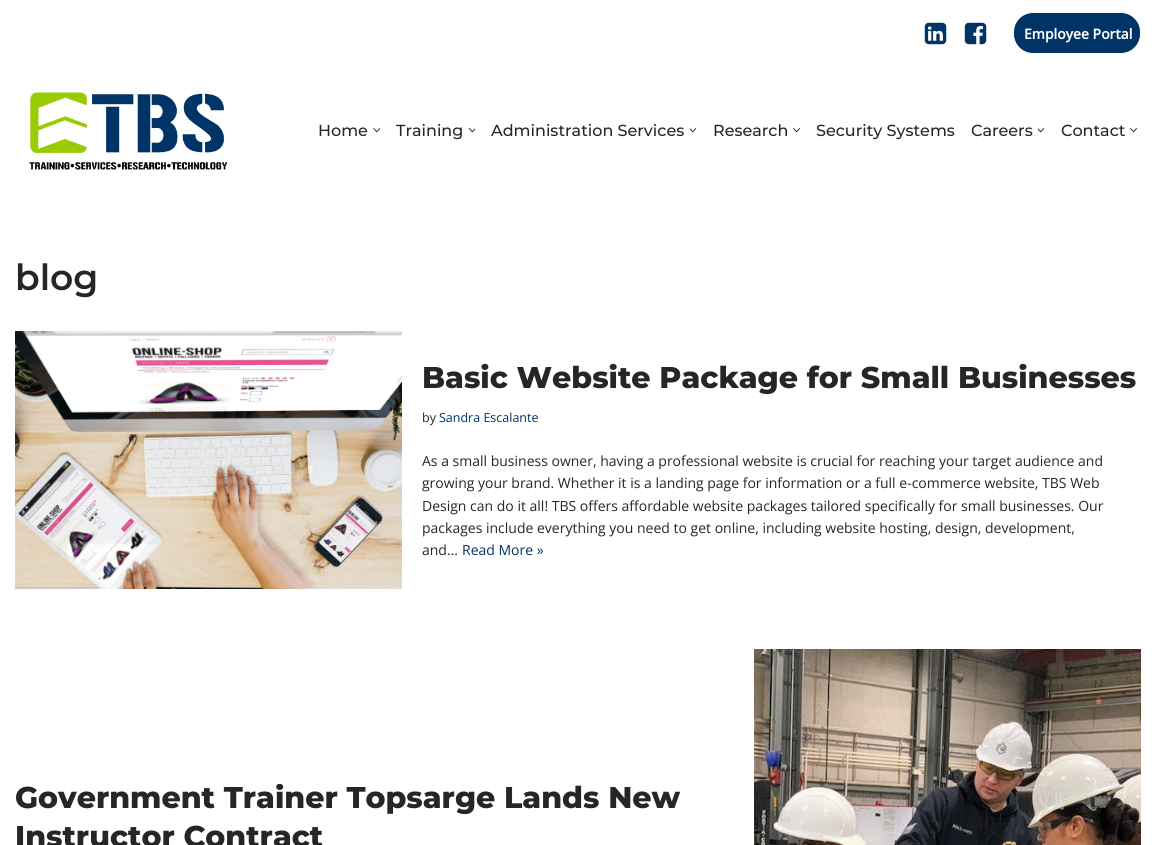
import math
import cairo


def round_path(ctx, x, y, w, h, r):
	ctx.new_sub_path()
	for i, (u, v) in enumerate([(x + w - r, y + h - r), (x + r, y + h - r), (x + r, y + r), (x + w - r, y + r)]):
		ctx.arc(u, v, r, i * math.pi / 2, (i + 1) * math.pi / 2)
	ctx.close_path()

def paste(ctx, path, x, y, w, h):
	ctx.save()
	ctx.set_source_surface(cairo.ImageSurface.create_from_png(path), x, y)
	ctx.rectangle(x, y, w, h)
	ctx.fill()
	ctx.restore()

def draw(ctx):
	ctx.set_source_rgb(1, 1, 1)
	ctx.paint()
	paste(ctx, 'media/1.png', 924, 22, 23, 23)
	paste(ctx, 'media/2.png', 964, 22, 23, 23)
	ctx.set_source_rgb(0, 0.2, 0.4)
	round_path(ctx, 1013.5, 12.5, 127, 41, 19.5)
	ctx.fill_preserve()
	ctx.set_source_rgb(1, 1, 1)
	ctx.set_line_width(1)
	ctx.stroke()
	ctx.select_font_face('Open Sans', cairo.FONT_SLANT_NORMAL, cairo.FONT_WEIGHT_BOLD)
	ctx.set_font_size(14)
	ctx.move_to(1024, 39)
	ctx.show_text('Employee Portal')
	paste(ctx, 'media/3.png', 29, 92, 199, 78)
	ctx.select_font_face('Montserrat Medium')
	ctx.set_font_size(16)
	ctx.set_source_rgb(0.149, 0.149, 0.149)
	ctx.move_to(318, 136)
	ctx.show_text('Home')
	paste(ctx, 'media/4.png', 373, 128, 7, 5)
	ctx.move_to(396, 136)
	ctx.show_text('Training')
	paste(ctx, 'media/5.png', 468, 128, 7, 5)
	ctx.move_to(491, 136)
	ctx.show_text('Administration Services')
	paste(ctx, 'media/6.png', 690, 128, 7, 5)
	ctx.move_to(713, 136)
	ctx.show_text('Research')
	paste(ctx, 'media/7.png', 793, 128, 7, 5)
	ctx.move_to(816, 136)
	ctx.show_text('Security Systems')
	ctx.move_to(971, 136)
	ctx.show_text('Careers')
	paste(ctx, 'media/8.png', 1038, 128, 7, 5)
	ctx.move_to(1061, 136)
	ctx.show_text('Contact')
	paste(ctx, 'media/9.png', 1130, 128, 7, 5)
	ctx.select_font_face('Montserrat SemiBold')
	ctx.set_font_size(36)
	ctx.move_to(15, 290)
	ctx.show_text('blog')
	paste(ctx, 'media/10.png', 15, 331, 387, 258)
	ctx.select_font_face('Montserrat ExtraBold')
	ctx.set_font_size(30)
	ctx.move_to(422, 388)
	ctx.show_text('Basic Website Package for Small Businesses')
	ctx.select_font_face('Open Sans')
	ctx.set_font_size(12.5)
	ctx.move_to(422, 422)
	ctx.show_text('by')
	ctx.set_source_rgb(0, 0.2, 0.4)
	ctx.move_to(439, 422)
	ctx.show_text('Sandra Escalante')
	ctx.set_font_size(14)
	ctx.set_source_rgb(0.149, 0.149, 0.149)
	for x, y, s in [
		(422, 466, 'As a small business owner, having a professional website is crucial for reaching your target audience and'),
		(422, 488, 'growing your brand. Whether it is a landing page for information or a full e-commerce website, TBS Web'),
		(422, 511, 'Design can do it all! TBS offers affordable website packages tailored specifically for small businesses. Our'),
		(422, 533, 'packages include everything you need to get online, including website hosting, design, development,'),
		(422, 555, 'and…'),
	]:
		ctx.move_to(x, y)
		ctx.show_text(s)
	ctx.set_source_rgb(0, 0.2, 0.4)
	ctx.move_to(462, 555)
	ctx.show_text('Read More »')
	ctx.select_font_face('Montserrat ExtraBold')
	ctx.set_font_size(30)
	ctx.set_source_rgb(0.149, 0.149, 0.149)
	ctx.move_to(15, 808)
	ctx.show_text('Government Trainer Topsarge Lands New')
	ctx.move_to(15, 847)
	ctx.show_text('Instructor Contract')
	paste(ctx, 'media/11.png', 754, 649, 387, 196)


surface = cairo.ImageSurface(cairo.FORMAT_RGB24, 1156, 845)
ctx = cairo.Context(surface)
options = cairo.FontOptions()
options.set_hint_metrics(cairo.HINT_METRICS_OFF)
options.set_hint_style(cairo.HINT_STYLE_NONE)
ctx.set_font_options(options)
ctx.set_miter_limit(4)
draw(ctx)
surface.write_to_png('image.png')
